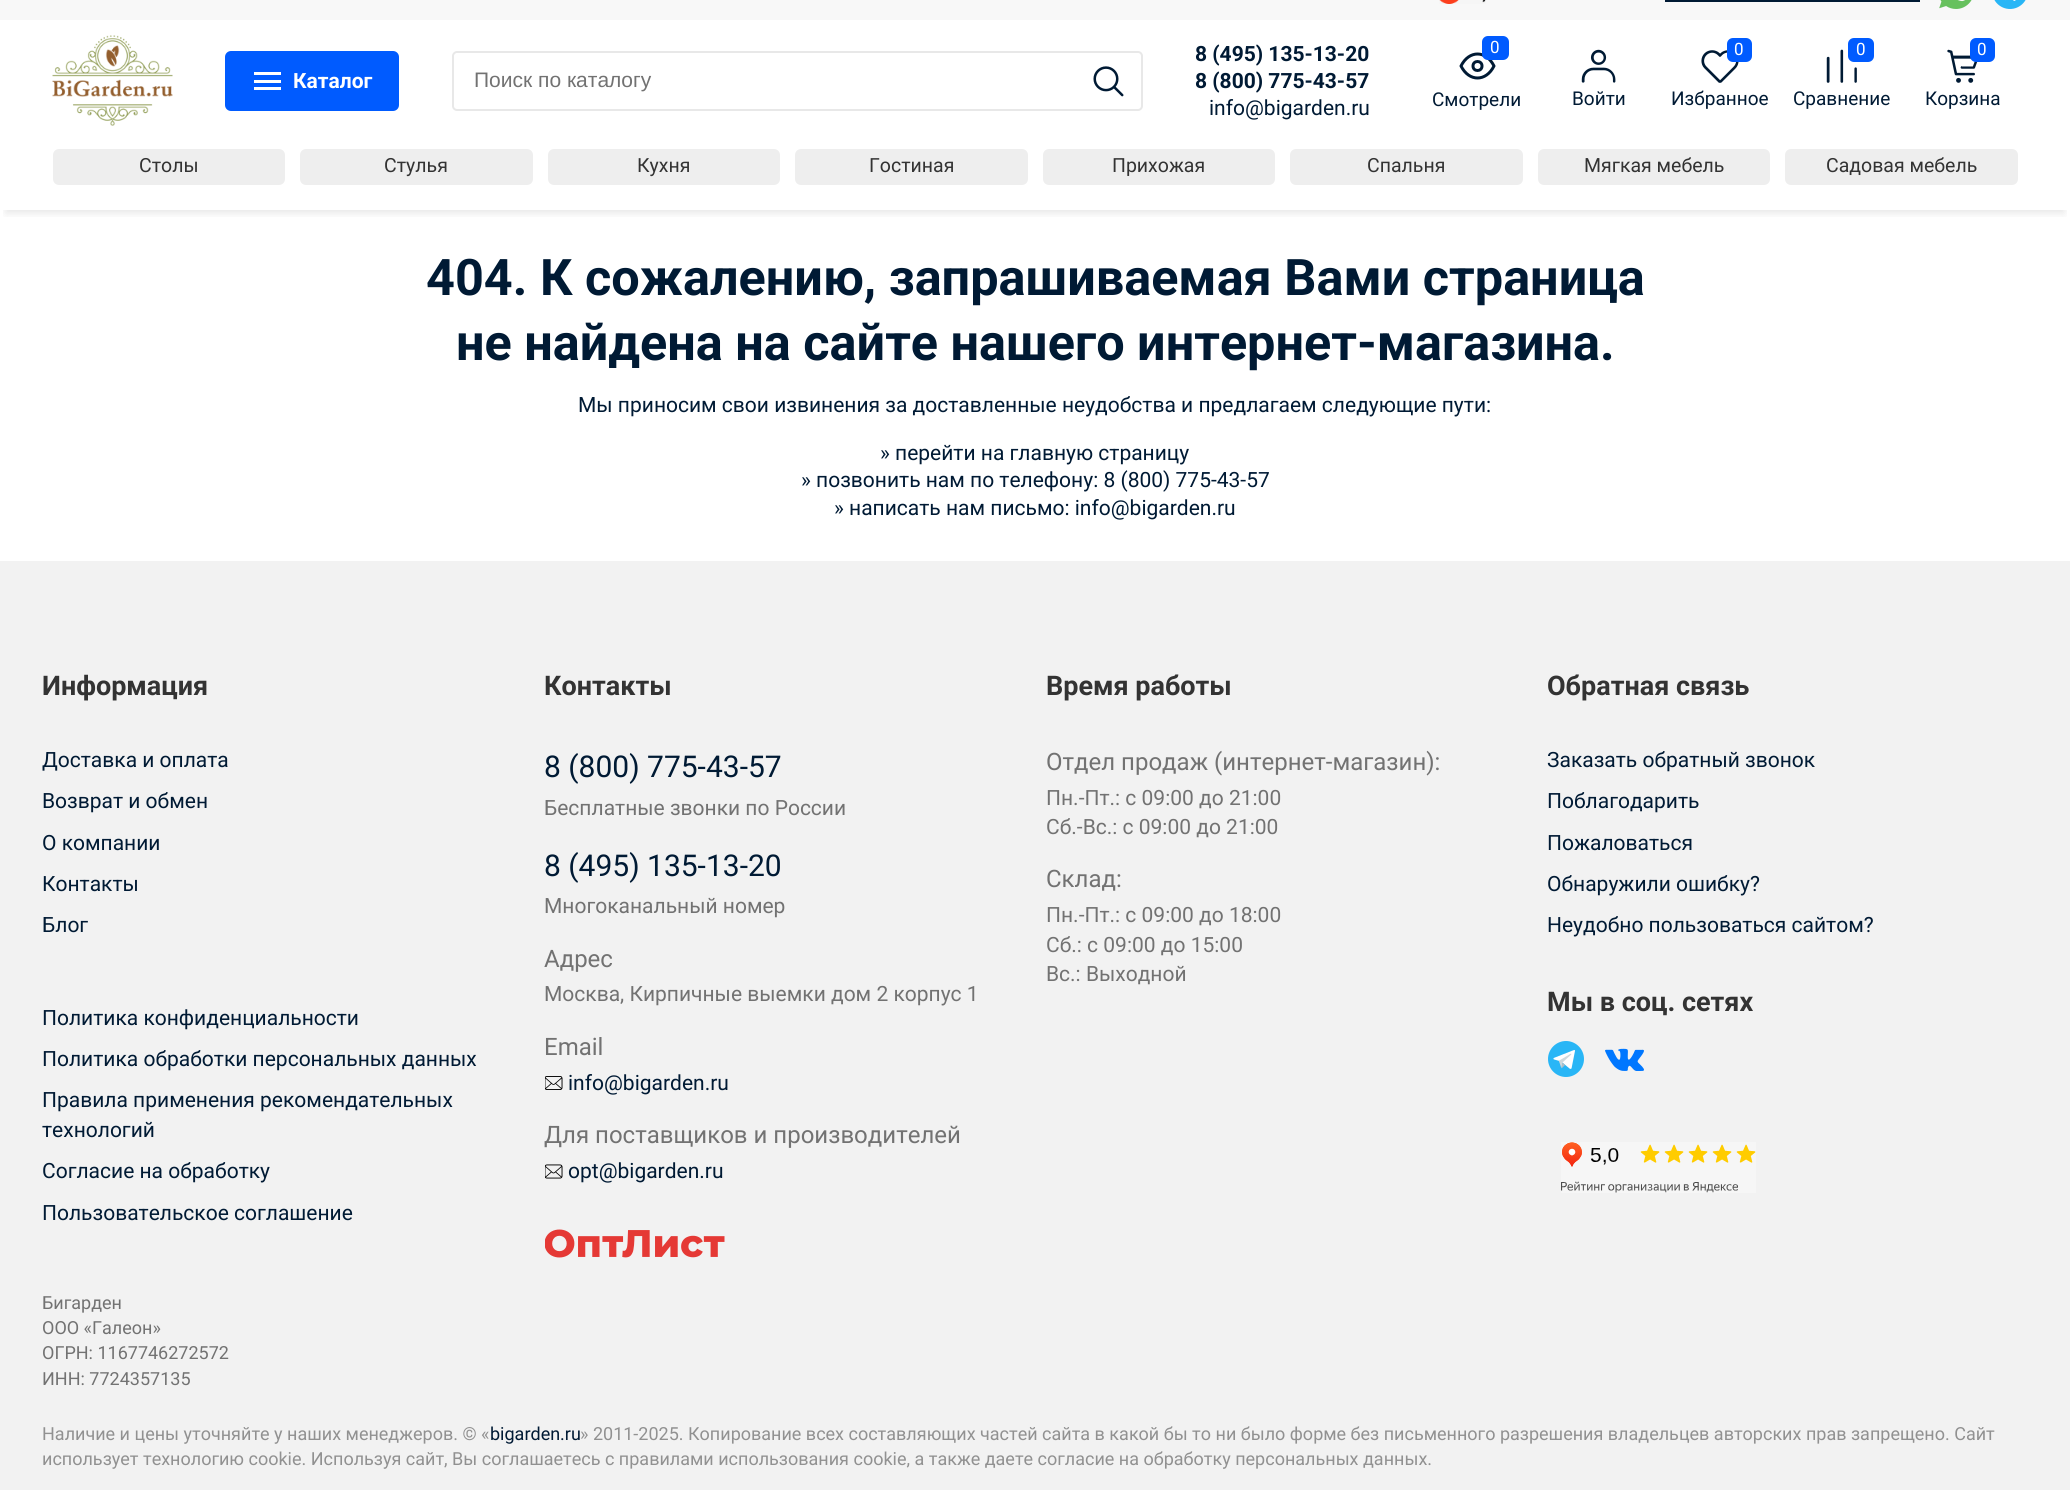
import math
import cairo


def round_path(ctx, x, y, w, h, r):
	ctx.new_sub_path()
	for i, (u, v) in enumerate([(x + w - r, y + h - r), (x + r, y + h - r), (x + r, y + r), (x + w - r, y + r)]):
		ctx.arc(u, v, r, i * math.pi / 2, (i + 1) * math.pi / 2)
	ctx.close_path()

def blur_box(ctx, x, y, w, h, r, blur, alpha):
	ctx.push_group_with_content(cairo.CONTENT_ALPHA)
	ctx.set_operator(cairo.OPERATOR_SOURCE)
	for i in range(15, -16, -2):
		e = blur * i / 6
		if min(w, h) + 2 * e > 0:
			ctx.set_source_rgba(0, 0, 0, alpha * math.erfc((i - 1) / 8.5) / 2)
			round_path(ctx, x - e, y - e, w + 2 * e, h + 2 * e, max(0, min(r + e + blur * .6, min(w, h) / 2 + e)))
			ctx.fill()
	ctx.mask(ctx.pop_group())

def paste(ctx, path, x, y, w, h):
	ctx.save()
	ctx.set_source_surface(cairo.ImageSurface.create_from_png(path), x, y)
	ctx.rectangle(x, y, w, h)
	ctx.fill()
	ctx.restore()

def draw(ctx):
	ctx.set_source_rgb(1, 1, 1)
	ctx.paint()
	ctx.set_source_rgb(0.969, 0.969, 0.969)
	ctx.rectangle(0, 0, 2070, 20)
	ctx.fill()
	paste(ctx, 'media/1.png', 1439, 0, 47, 4)
	ctx.set_source_rgb(0, 0.102, 0.204)
	ctx.rectangle(1665, 0, 255, 2)
	ctx.fill()
	paste(ctx, 'media/2.png', 1939, 0, 33, 9)
	paste(ctx, 'media/3.png', 1994, 0, 32, 9)
	ctx.save()
	ctx.rectangle(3, 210, 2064, 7)
	ctx.clip()
	ctx.set_source_rgb(0, 0, 0)
	blur_box(ctx, 6, 35, 2058, 178, 0, 4.5, 0.1)
	ctx.restore()
	paste(ctx, 'media/4.png', 52, 35, 121, 91)
	ctx.set_source_rgb(0, 0.357, 1)
	round_path(ctx, 225, 51, 174, 60, 6)
	ctx.fill()
	ctx.set_source_rgb(1, 1, 1)
	ctx.rectangle(254, 72, 27, 3)
	ctx.rectangle(254, 80, 27, 3)
	ctx.rectangle(254, 87, 27, 3)
	ctx.fill()
	ctx.select_font_face('Roboto', cairo.FONT_SLANT_NORMAL, cairo.FONT_WEIGHT_BOLD)
	ctx.set_font_size(21)
	ctx.move_to(293, 88)
	ctx.show_text('Каталог')
	round_path(ctx, 453, 52, 689, 58, 4)
	ctx.set_source_rgb(0.91, 0.91, 0.91)
	ctx.stroke()
	ctx.select_font_face('Liberation Sans')
	ctx.set_source_rgb(0.447, 0.447, 0.447)
	ctx.move_to(474, 87)
	ctx.show_text('Поиск по каталогу')
	paste(ctx, 'media/5.png', 1093, 66, 31, 31)
	ctx.select_font_face('Roboto', cairo.FONT_SLANT_NORMAL, cairo.FONT_WEIGHT_BOLD)
	ctx.set_source_rgb(0, 0.102, 0.204)
	ctx.move_to(1195, 61)
	ctx.show_text('8 (495) 135-13-20')
	ctx.move_to(1195, 88)
	ctx.show_text('8 (800) 775-43-57')
	ctx.select_font_face('Roboto')
	ctx.move_to(1209, 115)
	ctx.show_text('info@bigarden.ru')
	ctx.new_path()
	ctx.move_to(1461, 66)
	ctx.curve_to(1469, 50, 1486, 50, 1494, 66)
	ctx.curve_to(1486, 82, 1469, 82, 1461, 66)
	ctx.close_path()
	ctx.set_line_width(3)
	ctx.set_line_cap(cairo.LINE_CAP_ROUND)
	ctx.set_line_join(cairo.LINE_JOIN_ROUND)
	ctx.stroke()
	ctx.set_source_rgb(0, 0.357, 1)
	round_path(ctx, 1482, 36, 27, 24, 6)
	ctx.fill()
	ctx.set_font_size(17)
	ctx.set_source_rgb(1, 1, 1)
	ctx.move_to(1490, 53)
	ctx.show_text('0')
	ctx.new_path()
	ctx.arc(1477.5, 66, 4.5, 0, 2 * math.pi)
	ctx.set_source_rgb(0, 0.102, 0.204)
	ctx.set_line_cap(cairo.LINE_CAP_BUTT)
	ctx.set_line_join(cairo.LINE_JOIN_MITER)
	ctx.stroke()
	ctx.set_font_size(19)
	ctx.move_to(1432, 106)
	ctx.show_text('Смотрели')
	paste(ctx, 'media/6.png', 1581, 49, 35, 34)
	ctx.move_to(1572, 105)
	ctx.show_text('Войти')
	paste(ctx, 'media/7.png', 1701, 50, 38, 33)
	ctx.set_source_rgb(0, 0.357, 1)
	round_path(ctx, 1727, 38, 25, 24, 6)
	ctx.fill()
	ctx.set_font_size(17)
	ctx.set_source_rgb(1, 1, 1)
	ctx.move_to(1734, 55)
	ctx.show_text('0')
	ctx.set_font_size(19)
	ctx.set_source_rgb(0, 0.102, 0.204)
	ctx.move_to(1671, 105)
	ctx.show_text('Избранное')
	paste(ctx, 'media/8.png', 1826, 49, 31, 34)
	ctx.set_source_rgb(0, 0.357, 1)
	round_path(ctx, 1848, 38, 26, 24, 6)
	ctx.fill()
	ctx.set_font_size(17)
	ctx.set_source_rgb(1, 1, 1)
	ctx.move_to(1856, 55)
	ctx.show_text('0')
	ctx.set_font_size(19)
	ctx.set_source_rgb(0, 0.102, 0.204)
	ctx.move_to(1793, 105)
	ctx.show_text('Сравнение')
	paste(ctx, 'media/9.png', 1947, 49, 31, 34)
	ctx.set_source_rgb(0, 0.357, 1)
	round_path(ctx, 1970, 38, 25, 24, 6)
	ctx.fill()
	ctx.set_font_size(17)
	ctx.set_source_rgb(1, 1, 1)
	ctx.move_to(1977, 55)
	ctx.show_text('0')
	ctx.set_font_size(19)
	ctx.set_source_rgb(0, 0.102, 0.204)
	ctx.move_to(1925, 105)
	ctx.show_text('Корзина')
	ctx.set_source_rgb(0.933, 0.933, 0.933)
	round_path(ctx, 53, 149, 232, 36, 6)
	ctx.fill()
	ctx.set_font_size(19.5)
	ctx.set_source_rgb(0.2, 0.2, 0.2)
	ctx.move_to(139, 172)
	ctx.show_text('Столы')
	ctx.set_source_rgb(0.933, 0.933, 0.933)
	round_path(ctx, 300, 149, 233, 36, 6)
	ctx.fill()
	ctx.set_source_rgb(0.2, 0.2, 0.2)
	ctx.move_to(384, 172)
	ctx.show_text('Стулья')
	ctx.set_source_rgb(0.933, 0.933, 0.933)
	round_path(ctx, 548, 149, 232, 36, 6)
	ctx.fill()
	ctx.set_source_rgb(0.2, 0.2, 0.2)
	ctx.move_to(637, 172)
	ctx.show_text('Кухня')
	ctx.set_source_rgb(0.933, 0.933, 0.933)
	round_path(ctx, 795, 149, 233, 36, 6)
	ctx.fill()
	ctx.set_source_rgb(0.2, 0.2, 0.2)
	ctx.move_to(869, 172)
	ctx.show_text('Гостиная')
	ctx.set_source_rgb(0.933, 0.933, 0.933)
	round_path(ctx, 1043, 149, 232, 36, 6)
	ctx.fill()
	ctx.set_source_rgb(0.2, 0.2, 0.2)
	ctx.move_to(1112, 172)
	ctx.show_text('Прихожая')
	ctx.set_source_rgb(0.933, 0.933, 0.933)
	round_path(ctx, 1290, 149, 233, 36, 6)
	ctx.fill()
	ctx.set_source_rgb(0.2, 0.2, 0.2)
	ctx.move_to(1367, 172)
	ctx.show_text('Спальня')
	ctx.set_source_rgb(0.933, 0.933, 0.933)
	round_path(ctx, 1538, 149, 232, 36, 6)
	ctx.fill()
	ctx.set_source_rgb(0.2, 0.2, 0.2)
	ctx.move_to(1584, 172)
	ctx.show_text('Мягкая мебель')
	ctx.set_source_rgb(0.933, 0.933, 0.933)
	round_path(ctx, 1785, 149, 233, 36, 6)
	ctx.fill()
	ctx.set_source_rgb(0.2, 0.2, 0.2)
	ctx.move_to(1826, 172)
	ctx.show_text('Садовая мебель')
	ctx.select_font_face('Roboto', cairo.FONT_SLANT_NORMAL, cairo.FONT_WEIGHT_BOLD)
	ctx.set_font_size(50.4)
	ctx.set_source_rgb(0, 0.102, 0.204)
	for x, y, s in [
		(426, 295, '404.'),
		(540, 295, 'К сожалению, запрашиваемая Вами страница'),
		(456, 360, 'не найдена на сайте нашего интернет-магазина.'),
	]:
		ctx.move_to(x, y)
		ctx.show_text(s)
	ctx.select_font_face('Roboto')
	ctx.set_font_size(21)
	for x, y, s in [
		(578, 412, 'Мы приносим свои извинения за доставленные неудобства и предлагаем следующие пути:'),
		(880, 460, '» перейти на главную страницу'),
		(801, 487, '» позвонить нам по телефону: 8 (800) 775-43-57'),
		(834, 515, '» написать нам письмо: info@bigarden.ru'),
	]:
		ctx.move_to(x, y)
		ctx.show_text(s)
	ctx.set_source_rgb(0.949, 0.949, 0.949)
	ctx.rectangle(0, 561, 2070, 929)
	ctx.fill()
	ctx.select_font_face('Roboto', cairo.FONT_SLANT_NORMAL, cairo.FONT_WEIGHT_BOLD)
	ctx.set_font_size(27)
	ctx.set_source_rgb(0.2, 0.2, 0.2)
	ctx.move_to(42, 695)
	ctx.show_text('Информация')
	ctx.select_font_face('Roboto')
	ctx.set_font_size(21)
	ctx.set_source_rgb(0, 0.102, 0.204)
	for x, y, s in [
		(42, 767, 'Доставка и оплата'),
		(42, 808, 'Возврат и обмен'),
		(42, 850, 'О компании'),
		(42, 891, 'Контакты'),
		(42, 932, 'Блог'),
		(42, 1025, 'Политика конфиденциальности'),
		(42, 1066, 'Политика обработки персональных данных'),
		(42, 1107, 'Правила применения рекомендательных'),
		(42, 1137, 'технологий'),
		(42, 1178, 'Согласие на обработку'),
		(42, 1220, 'Пользовательское соглашение'),
	]:
		ctx.move_to(x, y)
		ctx.show_text(s)
	ctx.set_font_size(18)
	ctx.set_source_rgb(0.447, 0.447, 0.447)
	for x, y, s in [
		(42, 1309, 'Бигарден'),
		(42, 1334, 'ООО «Галеон»'),
		(42, 1359, 'ОГРН: 1167746272572'),
		(42, 1385, 'ИНН: 7724357135'),
	]:
		ctx.move_to(x, y)
		ctx.show_text(s)
	ctx.select_font_face('Roboto', cairo.FONT_SLANT_NORMAL, cairo.FONT_WEIGHT_BOLD)
	ctx.set_font_size(27)
	ctx.set_source_rgb(0.2, 0.2, 0.2)
	ctx.move_to(544, 695)
	ctx.show_text('Контакты')
	ctx.select_font_face('Roboto')
	ctx.set_font_size(30)
	ctx.set_source_rgb(0, 0.102, 0.204)
	ctx.move_to(544, 777)
	ctx.show_text('8 (800) 775-43-57')
	ctx.set_font_size(21)
	ctx.set_source_rgb(0.447, 0.447, 0.447)
	ctx.move_to(544, 815)
	ctx.show_text('Бесплатные звонки по России')
	ctx.set_font_size(30)
	ctx.set_source_rgb(0, 0.102, 0.204)
	ctx.move_to(544, 876)
	ctx.show_text('8 (495) 135-13-20')
	ctx.set_font_size(21)
	ctx.set_source_rgb(0.447, 0.447, 0.447)
	ctx.move_to(544, 913)
	ctx.show_text('Многоканальный номер')
	ctx.set_font_size(24)
	ctx.move_to(544, 967)
	ctx.show_text('Адрес')
	ctx.set_font_size(21)
	ctx.move_to(544, 1001)
	ctx.show_text('Москва, Кирпичные выемки дом 2 корпус 1')
	ctx.set_font_size(24)
	ctx.move_to(544, 1055)
	ctx.show_text('Email')
	paste(ctx, 'media/10.png', 545, 1076, 18, 14)
	ctx.set_font_size(21)
	ctx.set_source_rgb(0, 0.102, 0.204)
	ctx.move_to(568, 1090)
	ctx.show_text('info@bigarden.ru')
	ctx.set_font_size(24)
	ctx.set_source_rgb(0.447, 0.447, 0.447)
	ctx.move_to(544, 1143)
	ctx.show_text('Для поставщиков и производителей')
	paste(ctx, 'media/11.png', 545, 1164, 18, 15)
	ctx.set_font_size(21)
	ctx.set_source_rgb(0, 0.102, 0.204)
	ctx.move_to(568, 1178)
	ctx.show_text('opt@bigarden.ru')
	paste(ctx, 'media/12.png', 545, 1229, 180, 29)
	ctx.select_font_face('Roboto', cairo.FONT_SLANT_NORMAL, cairo.FONT_WEIGHT_BOLD)
	ctx.set_font_size(27)
	ctx.set_source_rgb(0.2, 0.2, 0.2)
	ctx.move_to(1046, 695)
	ctx.show_text('Время работы')
	ctx.select_font_face('Roboto')
	ctx.set_font_size(24)
	ctx.set_source_rgb(0.447, 0.447, 0.447)
	ctx.move_to(1046, 770)
	ctx.show_text('Отдел продаж (интернет-магазин):')
	ctx.set_font_size(21)
	ctx.move_to(1046, 805)
	ctx.show_text('Пн.-Пт.: с 09:00 до 21:00')
	ctx.move_to(1046, 834)
	ctx.show_text('Сб.-Вс.: с 09:00 до 21:00')
	ctx.set_font_size(24)
	ctx.move_to(1046, 887)
	ctx.show_text('Склад:')
	ctx.set_font_size(21)
	for x, y, s in [
		(1046, 922, 'Пн.-Пт.: с 09:00 до 18:00'),
		(1046, 952, 'Сб.: с 09:00 до 15:00'),
		(1046, 981, 'Вс.: Выходной'),
	]:
		ctx.move_to(x, y)
		ctx.show_text(s)
	ctx.select_font_face('Roboto', cairo.FONT_SLANT_NORMAL, cairo.FONT_WEIGHT_BOLD)
	ctx.set_font_size(27)
	ctx.set_source_rgb(0.2, 0.2, 0.2)
	ctx.move_to(1547, 695)
	ctx.show_text('Обратная связь')
	ctx.select_font_face('Roboto')
	ctx.set_font_size(21)
	ctx.set_source_rgb(0, 0.102, 0.204)
	for x, y, s in [
		(1547, 767, 'Заказать обратный звонок'),
		(1547, 808, 'Поблагодарить'),
		(1547, 850, 'Пожаловаться'),
		(1547, 891, 'Обнаружили ошибку?'),
		(1547, 932, 'Неудобно пользоваться сайтом?'),
	]:
		ctx.move_to(x, y)
		ctx.show_text(s)
	ctx.select_font_face('Roboto', cairo.FONT_SLANT_NORMAL, cairo.FONT_WEIGHT_BOLD)
	ctx.set_font_size(27)
	ctx.set_source_rgb(0.2, 0.2, 0.2)
	ctx.move_to(1547, 1011)
	ctx.show_text('Мы в соц. сетях')
	paste(ctx, 'media/13.png', 1548, 1041, 36, 36)
	paste(ctx, 'media/14.png', 1605, 1048, 39, 23)
	paste(ctx, 'media/15.png', 1561, 1142, 195, 51)
	ctx.select_font_face('Roboto')
	ctx.set_font_size(18)
	ctx.set_source_rgb(0.569, 0.569, 0.569)
	ctx.move_to(42, 1440)
	ctx.show_text('Наличие и цены уточняйте у наших менеджеров. © «')
	ctx.set_source_rgb(0, 0.102, 0.204)
	ctx.move_to(490, 1440)
	ctx.show_text('bigarden.ru')
	ctx.set_source_rgb(0.569, 0.569, 0.569)
	ctx.move_to(580, 1440)
	ctx.show_text('» 2011-2025. Копирование всех составляющих частей сайта в какой бы то ни было форме без письменного разрешения владельцев авторских прав запрещено. Сайт')
	ctx.move_to(42, 1465)
	ctx.show_text('использует технологию cookie. Используя сайт, Вы соглашаетесь с правилами использования cookie, а также даете согласие на обработку персональных данных.')


surface = cairo.ImageSurface(cairo.FORMAT_RGB24, 2070, 1490)
ctx = cairo.Context(surface)
options = cairo.FontOptions()
options.set_hint_metrics(cairo.HINT_METRICS_OFF)
options.set_hint_style(cairo.HINT_STYLE_NONE)
ctx.set_font_options(options)
ctx.set_miter_limit(4)
draw(ctx)
surface.write_to_png('image.png')
